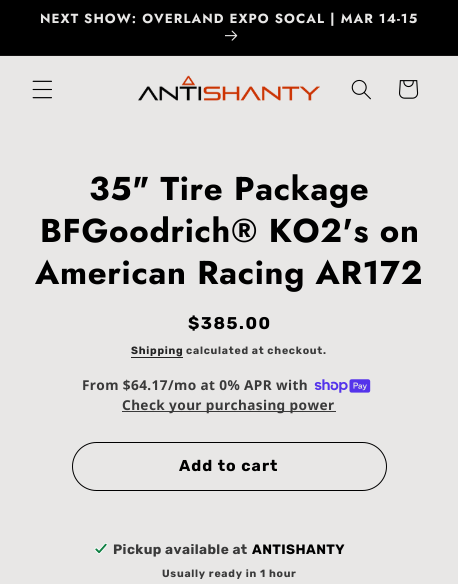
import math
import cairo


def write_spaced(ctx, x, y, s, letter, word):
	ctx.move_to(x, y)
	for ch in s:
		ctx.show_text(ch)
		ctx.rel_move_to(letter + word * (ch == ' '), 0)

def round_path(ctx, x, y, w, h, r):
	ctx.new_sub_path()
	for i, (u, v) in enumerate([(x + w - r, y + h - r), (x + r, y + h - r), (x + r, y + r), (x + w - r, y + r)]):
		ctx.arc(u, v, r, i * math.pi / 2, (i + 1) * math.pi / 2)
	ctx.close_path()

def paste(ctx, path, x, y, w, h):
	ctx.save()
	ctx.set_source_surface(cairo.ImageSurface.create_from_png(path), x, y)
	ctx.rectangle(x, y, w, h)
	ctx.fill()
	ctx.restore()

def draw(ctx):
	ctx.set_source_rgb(0.91, 0.906, 0.902)
	ctx.paint()
	ctx.set_source_rgb(0, 0, 0)
	ctx.rectangle(0, 0, 458, 55)
	ctx.fill()
	ctx.set_source_rgb(0.075, 0.071, 0.071)
	ctx.rectangle(0, 55, 458, 1)
	ctx.fill()
	ctx.select_font_face('Jost', cairo.FONT_SLANT_NORMAL, cairo.FONT_WEIGHT_BOLD)
	ctx.set_font_size(13.2)
	ctx.set_source_rgb(0.91, 0.906, 0.902)
	write_spaced(ctx, 40, 23, 'NEXT SHOW: OVERLAND EXPO SOCAL | MAR 14-15', 1.05, 0)
	paste(ctx, 'media/1.png', 225, 30, 13, 11)
	paste(ctx, 'media/2.png', 32, 80, 20, 19)
	paste(ctx, 'media/3.png', 138, 75, 182, 26)
	paste(ctx, 'media/4.png', 351, 79, 20, 21)
	paste(ctx, 'media/5.png', 399, 80, 20, 19)
	ctx.set_font_size(33)
	ctx.set_source_rgb(0, 0, 0)
	for x, y, s in [
		(89, 200, '35" Tire Package'),
		(40, 242, 'BFGoodrich® KO2\'s on'),
		(35, 284, 'American Racing AR172'),
	]:
		write_spaced(ctx, x, y, s, 0.7, 0)
	ctx.select_font_face('Rubik', cairo.FONT_SLANT_NORMAL, cairo.FONT_WEIGHT_BOLD)
	ctx.set_font_size(17)
	write_spaced(ctx, 188, 329, '$385.00', 1.5, 0)
	ctx.set_font_size(10.5)
	ctx.set_source_rgb(0.137, 0.137, 0.137)
	write_spaced(ctx, 131, 354, 'Shipping', 0.75, 0)
	ctx.rectangle(131, 357, 52, 1)
	ctx.fill()
	ctx.set_source_rgb(0.227, 0.227, 0.227)
	write_spaced(ctx, 186, 354, 'calculated at checkout.', 0.75, 0)
	ctx.select_font_face('Noto Sans', cairo.FONT_SLANT_NORMAL, cairo.FONT_WEIGHT_BOLD)
	ctx.set_font_size(13.6)
	write_spaced(ctx, 82, 390, 'From $64.17/mo at 0% APR with', 0.4, 0)
	paste(ctx, 'media/6.png', 314, 379, 57, 14)
	ctx.rectangle(122, 411, 214, 1)
	ctx.fill()
	write_spaced(ctx, 122, 410, 'Check your purchasing power', 0.4, 0)
	round_path(ctx, 72.5, 442.5, 314, 48, 24)
	ctx.set_source_rgb(0, 0, 0)
	ctx.set_line_width(1)
	ctx.stroke()
	ctx.select_font_face('Rubik', cairo.FONT_SLANT_NORMAL, cairo.FONT_WEIGHT_BOLD)
	ctx.set_font_size(15.75)
	write_spaced(ctx, 179, 471, 'Add to cart', 1.05, 0)
	paste(ctx, 'media/7.png', 94, 543, 14, 11)
	ctx.set_font_size(13.6)
	ctx.set_source_rgb(0.227, 0.227, 0.227)
	write_spaced(ctx, 113, 554, 'Pickup available at', 0.4, 0)
	ctx.set_source_rgb(0, 0, 0)
	write_spaced(ctx, 252, 554, 'ANTISHANTY', 0.4, 0)
	ctx.set_font_size(10.5)
	ctx.set_source_rgb(0.227, 0.227, 0.227)
	write_spaced(ctx, 162, 577, 'Usually ready in 1 hour', 0.75, 0)


surface = cairo.ImageSurface(cairo.FORMAT_RGB24, 458, 584)
ctx = cairo.Context(surface)
options = cairo.FontOptions()
options.set_hint_metrics(cairo.HINT_METRICS_OFF)
options.set_hint_style(cairo.HINT_STYLE_NONE)
ctx.set_font_options(options)
ctx.set_miter_limit(4)
draw(ctx)
surface.write_to_png('image.png')
